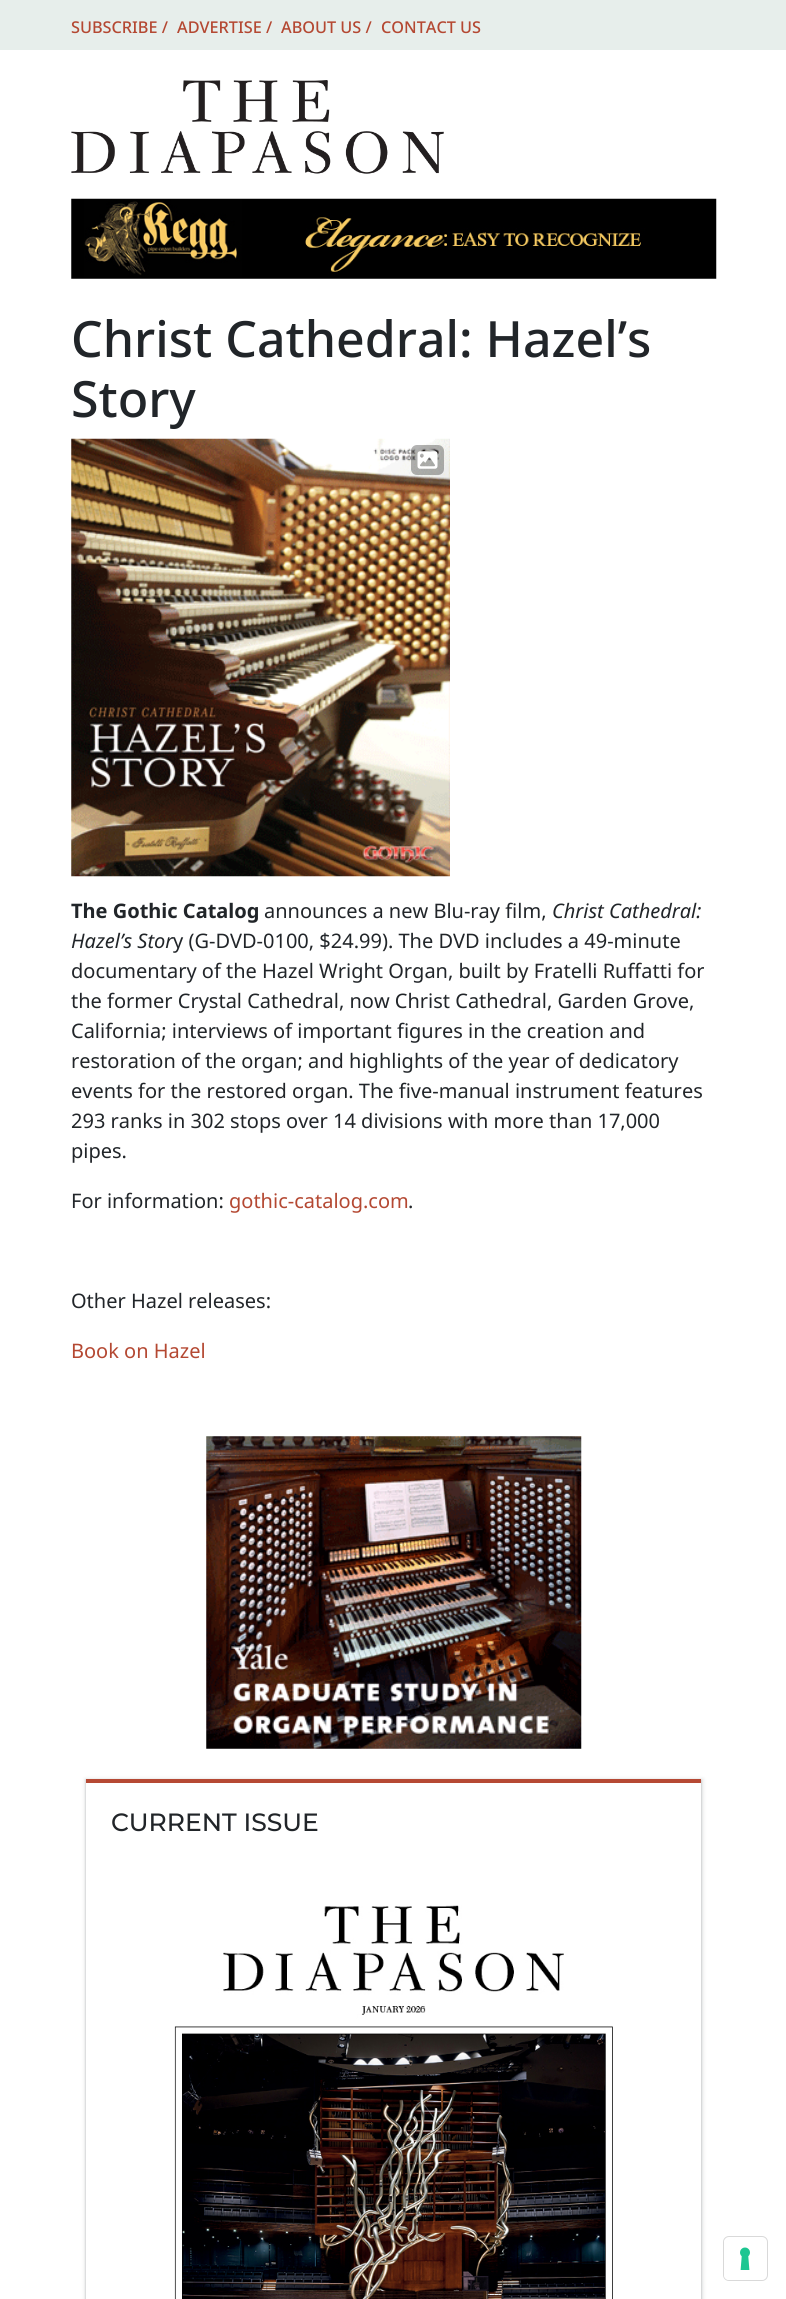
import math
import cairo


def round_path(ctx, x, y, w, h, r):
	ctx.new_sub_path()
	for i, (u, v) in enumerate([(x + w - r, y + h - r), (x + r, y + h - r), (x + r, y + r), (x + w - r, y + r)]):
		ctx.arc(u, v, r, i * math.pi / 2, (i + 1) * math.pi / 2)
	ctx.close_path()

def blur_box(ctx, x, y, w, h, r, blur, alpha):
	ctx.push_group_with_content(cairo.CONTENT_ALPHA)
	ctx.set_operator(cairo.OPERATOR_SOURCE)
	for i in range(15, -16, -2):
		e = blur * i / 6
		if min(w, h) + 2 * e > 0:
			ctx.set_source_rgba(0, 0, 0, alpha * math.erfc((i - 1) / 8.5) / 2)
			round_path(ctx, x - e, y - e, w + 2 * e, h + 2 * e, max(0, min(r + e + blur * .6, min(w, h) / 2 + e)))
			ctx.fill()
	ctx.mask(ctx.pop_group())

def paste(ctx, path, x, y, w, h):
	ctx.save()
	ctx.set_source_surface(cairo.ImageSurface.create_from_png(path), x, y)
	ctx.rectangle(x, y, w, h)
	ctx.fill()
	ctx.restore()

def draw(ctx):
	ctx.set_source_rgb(1, 1, 1)
	ctx.paint()
	ctx.set_source_rgb(0.906, 0.933, 0.918)
	ctx.rectangle(0, 0, 786, 50)
	ctx.fill()
	ctx.select_font_face('Noto Sans Medium')
	ctx.set_font_size(16.25)
	ctx.set_source_rgb(0.706, 0.282, 0.196)
	for x, y, s in [
		(71, 33, 'SUBSCRIBE /'),
		(177, 33, 'ADVERTISE /'),
		(281, 33, 'ABOUT US /'),
		(381, 33, 'CONTACT US'),
	]:
		ctx.move_to(x, y)
		ctx.show_text(s)
	paste(ctx, 'media/1.png', 71, 80, 373, 94)
	paste(ctx, 'media/2.png', 71, 198, 646, 81)
	ctx.set_font_size(50)
	ctx.set_source_rgb(0.129, 0.145, 0.161)
	ctx.move_to(71, 357)
	ctx.show_text('Christ Cathedral: Hazel’s')
	ctx.move_to(71, 417)
	ctx.show_text('Story')
	paste(ctx, 'media/3.png', 71, 438, 379, 439)
	ctx.set_source_rgba(0, 0, 0, 0.3)
	round_path(ctx, 411, 445, 33, 30, 6)
	ctx.fill()
	paste(ctx, 'media/4.png', 417, 451, 21, 18)
	ctx.select_font_face('Noto Sans', cairo.FONT_SLANT_NORMAL, cairo.FONT_WEIGHT_BOLD)
	ctx.set_font_size(20)
	ctx.set_source_rgb(0.129, 0.145, 0.161)
	ctx.move_to(71, 918)
	ctx.show_text('The Gothic Catalog')
	ctx.select_font_face('Noto Sans')
	ctx.move_to(264, 918)
	ctx.show_text('announces a new Blu-ray film,')
	ctx.select_font_face('Noto Sans', cairo.FONT_SLANT_ITALIC)
	ctx.move_to(552, 918)
	ctx.show_text('Christ Cathedral:')
	ctx.move_to(71, 948)
	ctx.show_text('Hazel’s Stor')
	ctx.select_font_face('Noto Sans')
	for x, y, s in [
		(173, 948, 'y (G-DVD-0100, $24.99). The DVD includes a 49-minute'),
		(71, 978, 'documentary of the Hazel Wright Organ, built by Fratelli Ruffatti for'),
		(71, 1008, 'the former Crystal Cathedral, now Christ Cathedral, Garden Grove,'),
		(71, 1038, 'California; interviews of important figures in the creation and'),
		(71, 1068, 'restoration of the organ; and highlights of the year of dedicatory'),
		(71, 1098, 'events for the restored organ. The five-manual instrument features'),
		(71, 1128, '293 ranks in 302 stops over 14 divisions with more than 17,000'),
		(71, 1158, 'pipes.'),
		(71, 1208, 'For information:'),
	]:
		ctx.move_to(x, y)
		ctx.show_text(s)
	ctx.set_source_rgb(0.706, 0.282, 0.196)
	ctx.move_to(229, 1208)
	ctx.show_text('gothic-catalog.com')
	ctx.set_source_rgb(0.129, 0.145, 0.161)
	ctx.move_to(408, 1208)
	ctx.show_text('.')
	ctx.move_to(71, 1308)
	ctx.show_text('Other Hazel releases:')
	ctx.set_source_rgb(0.706, 0.282, 0.196)
	ctx.move_to(71, 1358)
	ctx.show_text('Book on Hazel')
	paste(ctx, 'media/5.png', 206, 1436, 376, 313)
	ctx.save()
	ctx.set_fill_rule(cairo.FILL_RULE_EVEN_ODD)
	ctx.new_path()
	ctx.move_to(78, 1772)
	ctx.line_to(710, 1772)
	ctx.line_to(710, 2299)
	ctx.line_to(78, 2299)
	ctx.close_path()
	ctx.move_to(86, 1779)
	ctx.line_to(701, 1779)
	ctx.line_to(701, 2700)
	ctx.line_to(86, 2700)
	ctx.close_path()
	ctx.clip()
	ctx.set_source_rgb(0.235, 0.251, 0.263)
	blur_box(ctx, 85, 1779, 618, 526, 0, 2, 0.15)
	ctx.restore()
	ctx.save()
	ctx.set_fill_rule(cairo.FILL_RULE_EVEN_ODD)
	ctx.new_path()
	ctx.move_to(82, 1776)
	ctx.line_to(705, 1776)
	ctx.line_to(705, 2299)
	ctx.line_to(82, 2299)
	ctx.close_path()
	ctx.move_to(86, 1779)
	ctx.line_to(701, 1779)
	ctx.line_to(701, 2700)
	ctx.line_to(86, 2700)
	ctx.close_path()
	ctx.clip()
	ctx.set_source_rgb(0.235, 0.251, 0.263)
	blur_box(ctx, 86, 1780, 615, 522, 0, 1, 0.3)
	ctx.restore()
	ctx.set_source_rgba(0.682, 0.212, 0.118, 0.9)
	ctx.rectangle(86, 1779, 615, 4)
	ctx.fill()
	ctx.select_font_face('Montserrat Medium')
	ctx.set_font_size(25)
	ctx.set_source_rgb(0.129, 0.145, 0.161)
	ctx.move_to(111, 1831)
	ctx.show_text('CURRENT ISSUE')
	paste(ctx, 'media/6.png', 174, 1905, 439, 394)
	round_path(ctx, 723.5, 2236.5, 44, 44, 5.5)
	ctx.set_source_rgb(0.851, 0.851, 0.851)
	ctx.set_line_width(1)
	ctx.stroke()
	ctx.set_source_rgb(1, 1, 1)
	round_path(ctx, 724, 2238, 42, 42, 5)
	ctx.fill()
	paste(ctx, 'media/7.png', 740, 2247, 10, 23)


surface = cairo.ImageSurface(cairo.FORMAT_RGB24, 786, 2299)
ctx = cairo.Context(surface)
options = cairo.FontOptions()
options.set_hint_metrics(cairo.HINT_METRICS_OFF)
options.set_hint_style(cairo.HINT_STYLE_NONE)
ctx.set_font_options(options)
ctx.set_miter_limit(4)
draw(ctx)
surface.write_to_png('image.png')
